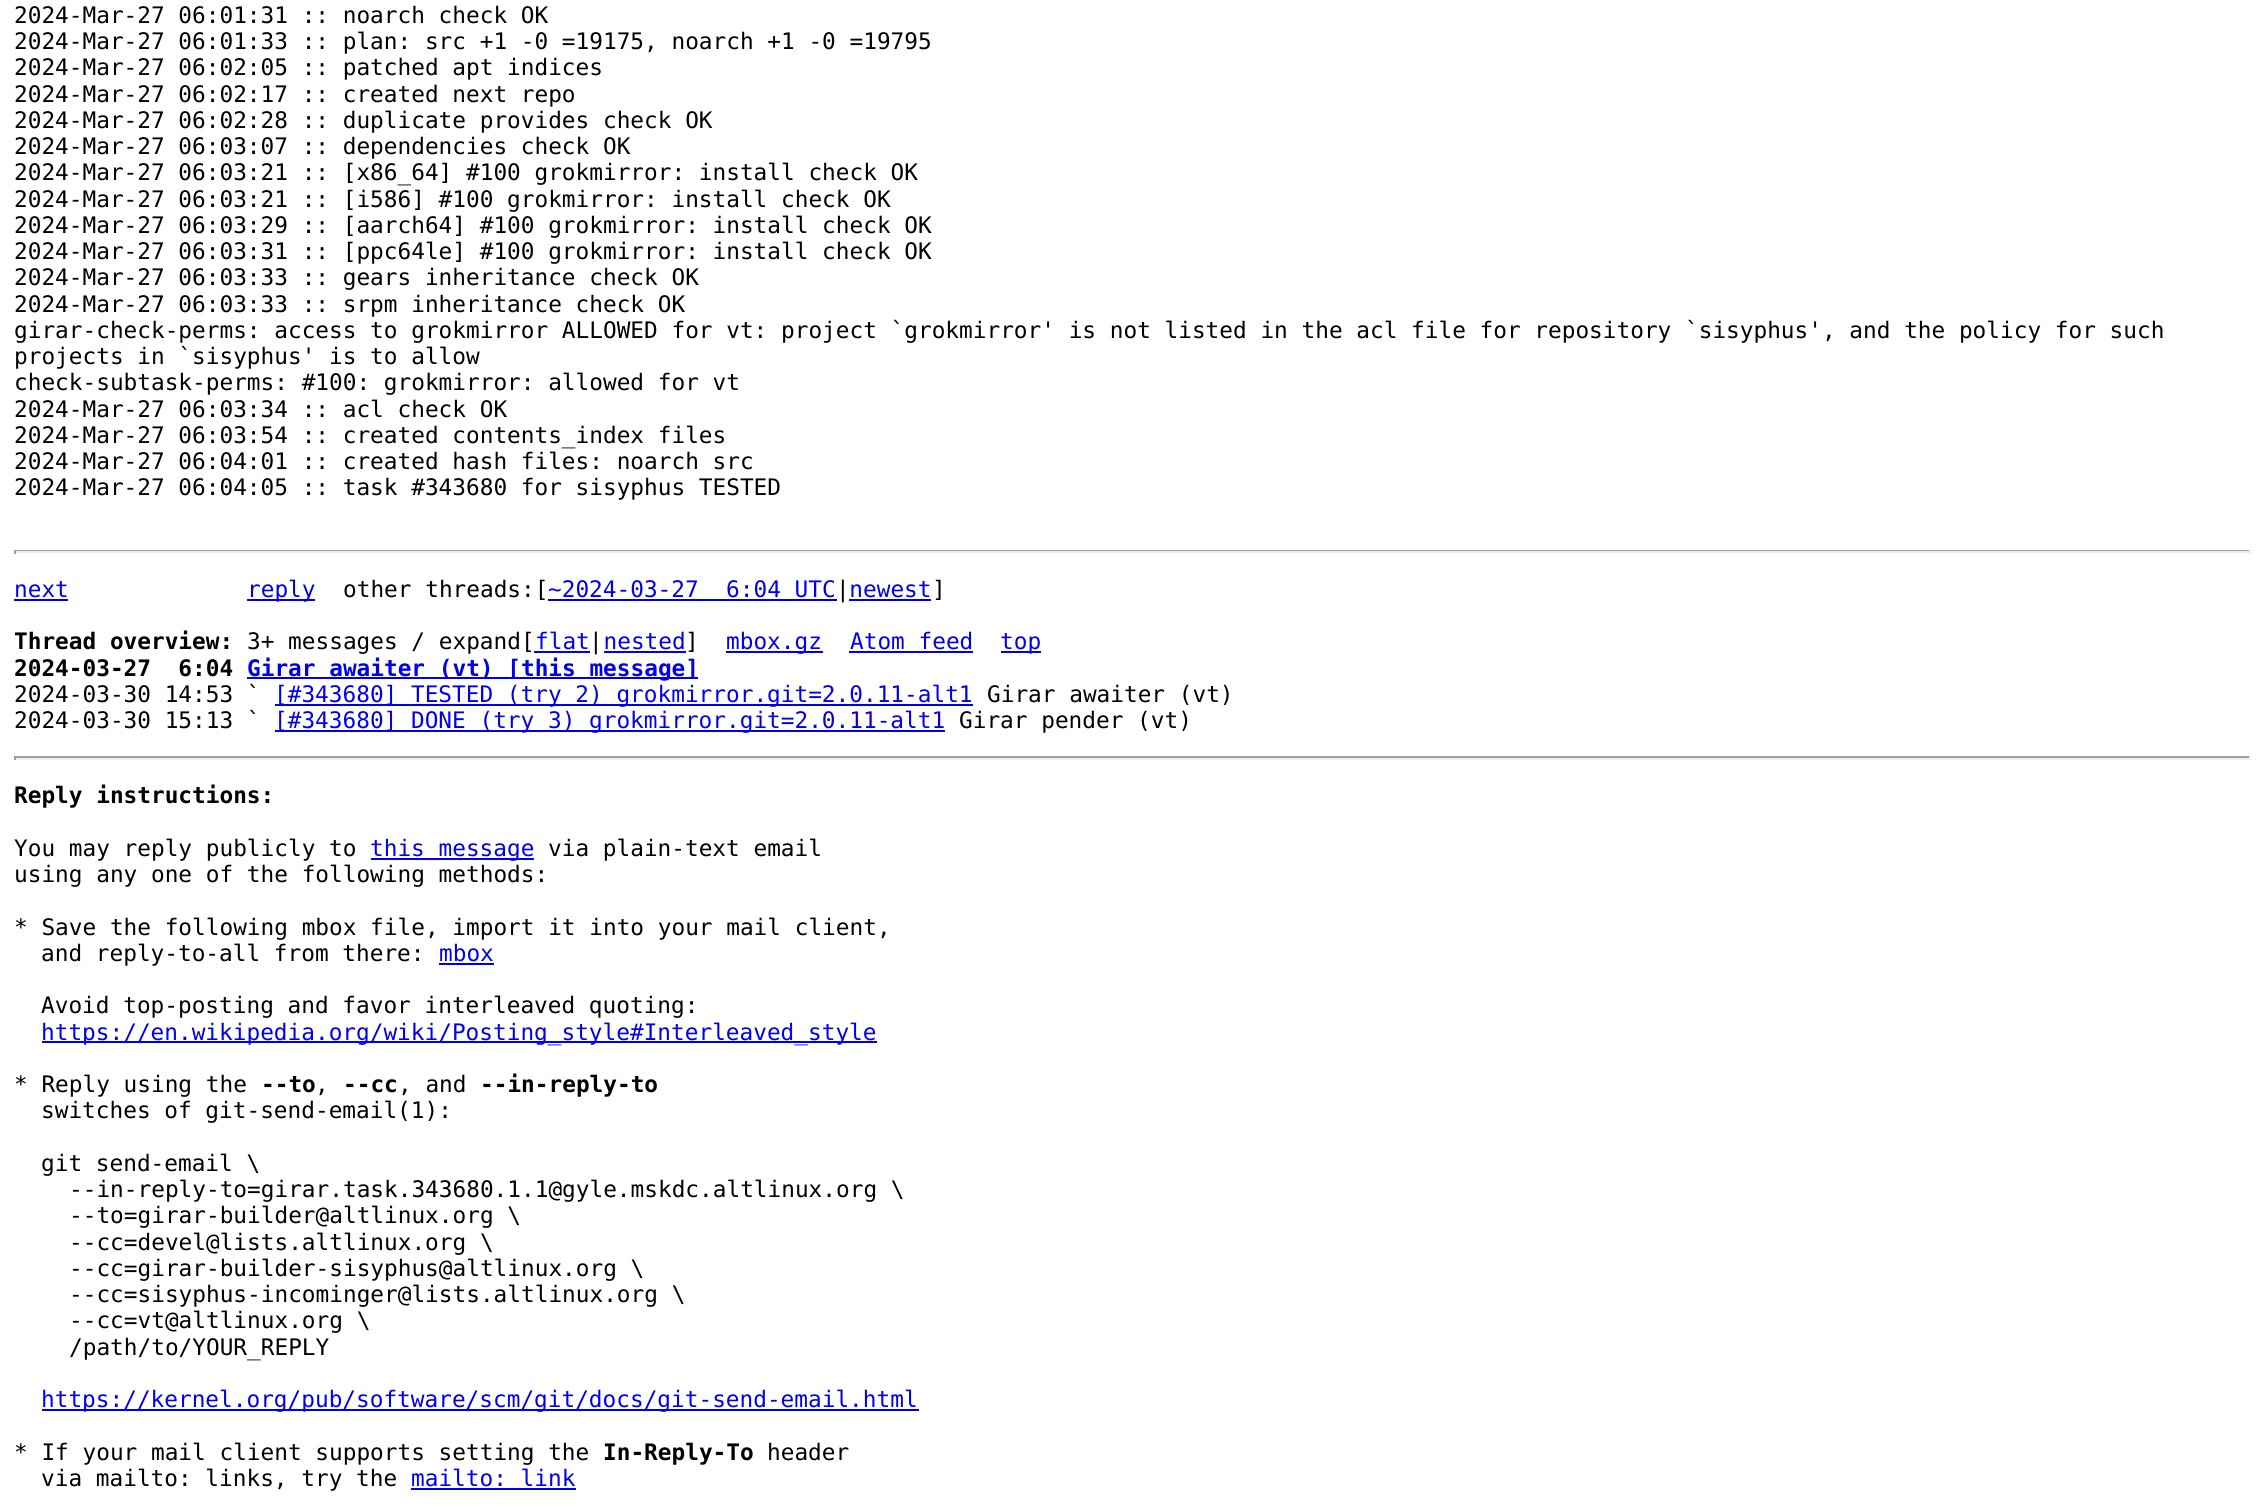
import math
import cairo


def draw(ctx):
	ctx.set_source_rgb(1, 1, 1)
	ctx.paint()
	ctx.select_font_face('DejaVu Sans Mono')
	ctx.set_font_size(22.75)
	ctx.set_source_rgb(0, 0, 0)
	for x, y, s in [
		(14, 23, '2024-Mar-27 06:01:31 :: noarch check OK'),
		(14, 49, '2024-Mar-27 06:01:33 :: plan: src +1 -0 =19175, noarch +1 -0 =19795'),
		(14, 75, '2024-Mar-27 06:02:05 :: patched apt indices'),
		(14, 102, '2024-Mar-27 06:02:17 :: created next repo'),
		(14, 128, '2024-Mar-27 06:02:28 :: duplicate provides check OK'),
		(14, 154, '2024-Mar-27 06:03:07 :: dependencies check OK'),
		(14, 180, '2024-Mar-27 06:03:21 :: [x86_64] #100 grokmirror: install check OK'),
		(14, 207, '2024-Mar-27 06:03:21 :: [i586] #100 grokmirror: install check OK'),
		(14, 233, '2024-Mar-27 06:03:29 :: [aarch64] #100 grokmirror: install check OK'),
		(14, 259, '2024-Mar-27 06:03:31 :: [ppc64le] #100 grokmirror: install check OK'),
		(14, 285, '2024-Mar-27 06:03:33 :: gears inheritance check OK'),
		(14, 312, '2024-Mar-27 06:03:33 :: srpm inheritance check OK'),
		(14, 338, 'girar-check-perms: access to grokmirror ALLOWED for vt: project `grokmirror\' is not listed in the acl file for repository `sisyphus\', and the policy for such'),
		(14, 364, 'projects in `sisyphus\' is to allow'),
		(14, 390, 'check-subtask-perms: #100: grokmirror: allowed for vt'),
		(14, 417, '2024-Mar-27 06:03:34 :: acl check OK'),
		(14, 443, '2024-Mar-27 06:03:54 :: created contents_index files'),
		(14, 469, '2024-Mar-27 06:04:01 :: created hash files: noarch src'),
		(14, 495, '2024-Mar-27 06:04:05 :: task #343680 for sisyphus TESTED'),
	]:
		ctx.move_to(x, y)
		ctx.show_text(s)
	ctx.set_source_rgb(0.624, 0.624, 0.624)
	ctx.rectangle(14, 550, 2237, 1)
	ctx.fill()
	ctx.set_source_rgb(0.933, 0.933, 0.933)
	ctx.rectangle(2249, 550, 2, 4)
	ctx.rectangle(14, 551, 2237, 2)
	ctx.fill()
	ctx.set_source_rgb(0.624, 0.624, 0.624)
	ctx.rectangle(14, 550, 2, 4)
	ctx.fill()
	ctx.set_source_rgb(0, 0, 0.933)
	ctx.rectangle(247, 599, 68, 2)
	ctx.fill()
	ctx.move_to(247, 597)
	ctx.show_text('reply')
	ctx.set_source_rgb(0, 0, 0)
	ctx.move_to(343, 597)
	ctx.show_text('other threads:[')
	ctx.set_source_rgb(0, 0, 0.933)
	ctx.move_to(548, 597)
	ctx.show_text('~2024-03-27  6:04 UTC newest')
	ctx.set_source_rgb(0, 0, 0)
	ctx.move_to(836, 597)
	ctx.show_text('|')
	ctx.move_to(932, 597)
	ctx.show_text(']')
	ctx.set_source_rgb(0, 0, 0.933)
	ctx.move_to(14, 597)
	ctx.show_text('next')
	ctx.rectangle(14, 599, 54, 2)
	ctx.rectangle(548, 599, 289, 2)
	ctx.rectangle(849, 599, 82, 2)
	ctx.fill()
	ctx.select_font_face('DejaVu Sans Mono', cairo.FONT_SLANT_NORMAL, cairo.FONT_WEIGHT_BOLD)
	ctx.set_source_rgb(0, 0, 0)
	ctx.move_to(14, 649)
	ctx.show_text('Thread overview:')
	ctx.select_font_face('DejaVu Sans Mono')
	ctx.move_to(247, 649)
	ctx.show_text('3+ messages / expand[')
	ctx.set_source_rgb(0, 0, 0.933)
	ctx.move_to(535, 649)
	ctx.show_text('flat nested')
	ctx.rectangle(534, 651, 56, 2)
	ctx.fill()
	ctx.set_source_rgb(0, 0, 0)
	ctx.move_to(589, 649)
	ctx.show_text('|')
	ctx.set_source_rgb(0, 0, 0.933)
	ctx.rectangle(604, 651, 82, 2)
	ctx.fill()
	ctx.set_source_rgb(0, 0, 0)
	ctx.move_to(685, 649)
	ctx.show_text(']')
	ctx.set_source_rgb(0, 0, 0.933)
	ctx.rectangle(726, 651, 97, 2)
	ctx.fill()
	ctx.move_to(726, 649)
	ctx.show_text('mbox.gz')
	ctx.move_to(850, 649)
	ctx.show_text('Atom feed')
	ctx.rectangle(849, 651, 124, 2)
	ctx.fill()
	ctx.rectangle(1001, 651, 40, 2)
	ctx.fill()
	ctx.move_to(1000, 649)
	ctx.show_text('top')
	ctx.select_font_face('DejaVu Sans Mono', cairo.FONT_SLANT_NORMAL, cairo.FONT_WEIGHT_BOLD)
	ctx.set_source_rgb(0, 0, 0)
	ctx.move_to(14, 676)
	ctx.show_text('2024-03-27  6:04')
	ctx.set_source_rgb(0, 0, 0.933)
	ctx.rectangle(247, 677, 451, 2)
	ctx.fill()
	ctx.move_to(247, 676)
	ctx.show_text('Girar awaiter (vt) [this message]')
	ctx.select_font_face('DejaVu Sans Mono')
	ctx.set_source_rgb(0, 0, 0)
	ctx.move_to(14, 702)
	ctx.show_text('2024-03-30 14:53 `')
	ctx.set_source_rgb(0, 0, 0.933)
	ctx.rectangle(275, 704, 698, 2)
	ctx.fill()
	ctx.move_to(274, 702)
	ctx.show_text('[#343680] TESTED (try 2) grokmirror.git=2.0.11-alt1')
	ctx.set_source_rgb(0, 0, 0)
	ctx.move_to(987, 702)
	ctx.show_text('Girar awaiter (vt)')
	ctx.move_to(14, 728)
	ctx.show_text('2024-03-30 15:13 `')
	ctx.set_source_rgb(0, 0, 0.933)
	ctx.rectangle(275, 730, 670, 2)
	ctx.fill()
	ctx.move_to(274, 728)
	ctx.show_text('[#343680] DONE (try 3) grokmirror.git=2.0.11-alt1')
	ctx.set_source_rgb(0, 0, 0)
	ctx.move_to(959, 728)
	ctx.show_text('Girar pender (vt)')
	ctx.set_source_rgb(0.624, 0.624, 0.624)
	ctx.rectangle(14, 756, 2237, 2)
	ctx.fill()
	ctx.set_source_rgb(0.933, 0.933, 0.933)
	ctx.rectangle(2249, 756, 2, 4)
	ctx.rectangle(14, 758, 2237, 2)
	ctx.fill()
	ctx.set_source_rgb(0.624, 0.624, 0.624)
	ctx.rectangle(14, 756, 2, 4)
	ctx.fill()
	ctx.select_font_face('DejaVu Sans Mono', cairo.FONT_SLANT_NORMAL, cairo.FONT_WEIGHT_BOLD)
	ctx.set_source_rgb(0, 0, 0)
	ctx.move_to(14, 803)
	ctx.show_text('Reply instructions:')
	ctx.select_font_face('DejaVu Sans Mono')
	ctx.move_to(14, 856)
	ctx.show_text('You may reply publicly to')
	ctx.set_source_rgb(0, 0, 0.933)
	ctx.rectangle(371, 858, 163, 2)
	ctx.fill()
	ctx.move_to(370, 856)
	ctx.show_text('this message')
	ctx.set_source_rgb(0, 0, 0)
	for x, y, s in [
		(548, 856, 'via plain-text email'),
		(14, 882, 'using any one of the following methods:'),
		(14, 935, '* Save the following mbox file, import it into your mail client,'),
		(41, 961, 'and reply-to-all from there:'),
	]:
		ctx.move_to(x, y)
		ctx.show_text(s)
	ctx.set_source_rgb(0, 0, 0.933)
	ctx.move_to(439, 961)
	ctx.show_text('mbox')
	ctx.rectangle(439, 963, 55, 2)
	ctx.fill()
	ctx.set_source_rgb(0, 0, 0)
	ctx.move_to(41, 1013)
	ctx.show_text('Avoid top-posting and favor interleaved quoting:')
	ctx.set_source_rgb(0, 0, 0.933)
	ctx.rectangle(42, 1041, 835, 2)
	ctx.fill()
	ctx.move_to(41, 1040)
	ctx.show_text('https://en.wikipedia.org/wiki/Posting_style#Interleaved_style')
	ctx.set_source_rgb(0, 0, 0)
	ctx.move_to(14, 1092)
	ctx.show_text('* Reply using the')
	ctx.select_font_face('DejaVu Sans Mono', cairo.FONT_SLANT_NORMAL, cairo.FONT_WEIGHT_BOLD)
	ctx.move_to(261, 1092)
	ctx.show_text('--to')
	ctx.select_font_face('DejaVu Sans Mono')
	ctx.move_to(315, 1092)
	ctx.show_text(',')
	ctx.select_font_face('DejaVu Sans Mono', cairo.FONT_SLANT_NORMAL, cairo.FONT_WEIGHT_BOLD)
	ctx.move_to(343, 1092)
	ctx.show_text('--cc')
	ctx.select_font_face('DejaVu Sans Mono')
	ctx.move_to(398, 1092)
	ctx.show_text(', and')
	ctx.select_font_face('DejaVu Sans Mono', cairo.FONT_SLANT_NORMAL, cairo.FONT_WEIGHT_BOLD)
	ctx.move_to(480, 1092)
	ctx.show_text('--in-reply-to')
	ctx.select_font_face('DejaVu Sans Mono')
	for x, y, s in [
		(41, 1118, 'switches of git-send-email(1):'),
		(41, 1171, 'git send-email \\'),
		(69, 1197, '--in-reply-to=girar.task.343680.1.1@gyle.mskdc.altlinux.org \\'),
		(69, 1223, '--to=girar-builder@altlinux.org \\'),
		(69, 1250, '--cc=devel@lists.altlinux.org \\'),
		(69, 1276, '--cc=girar-builder-sisyphus@altlinux.org \\'),
		(69, 1302, '--cc=sisyphus-incominger@lists.altlinux.org \\'),
		(69, 1328, '--cc=vt@altlinux.org \\'),
		(69, 1355, '/path/to/YOUR_REPLY'),
	]:
		ctx.move_to(x, y)
		ctx.show_text(s)
	ctx.set_source_rgb(0, 0, 0.933)
	ctx.rectangle(42, 1409, 877, 2)
	ctx.fill()
	ctx.move_to(41, 1407)
	ctx.show_text('https://kernel.org/pub/software/scm/git/docs/git-send-email.html')
	ctx.set_source_rgb(0, 0, 0)
	ctx.move_to(14, 1460)
	ctx.show_text('* If your mail client supports setting the')
	ctx.select_font_face('DejaVu Sans Mono', cairo.FONT_SLANT_NORMAL, cairo.FONT_WEIGHT_BOLD)
	ctx.move_to(603, 1460)
	ctx.show_text('In-Reply-To')
	ctx.select_font_face('DejaVu Sans Mono')
	ctx.move_to(767, 1460)
	ctx.show_text('header')
	ctx.move_to(41, 1486)
	ctx.show_text('via mailto: links, try the')
	ctx.set_source_rgb(0, 0, 0.933)
	ctx.move_to(411, 1486)
	ctx.show_text('mailto: link')
	ctx.rectangle(411, 1488, 165, 2)
	ctx.fill()


surface = cairo.ImageSurface(cairo.FORMAT_RGB24, 2263, 1507)
ctx = cairo.Context(surface)
options = cairo.FontOptions()
options.set_hint_metrics(cairo.HINT_METRICS_OFF)
options.set_hint_style(cairo.HINT_STYLE_NONE)
ctx.set_font_options(options)
ctx.set_miter_limit(4)
draw(ctx)
surface.write_to_png('image.png')
